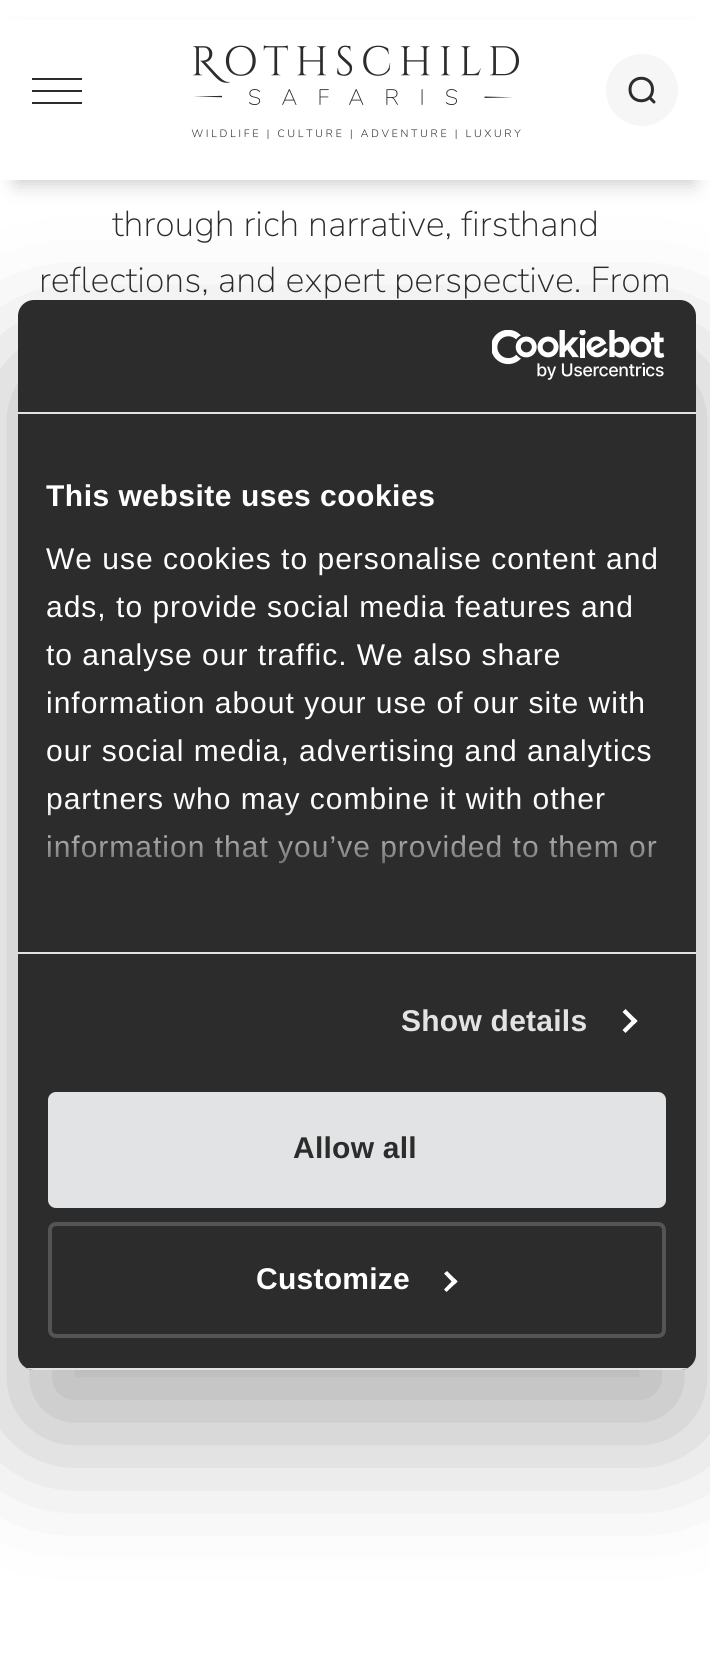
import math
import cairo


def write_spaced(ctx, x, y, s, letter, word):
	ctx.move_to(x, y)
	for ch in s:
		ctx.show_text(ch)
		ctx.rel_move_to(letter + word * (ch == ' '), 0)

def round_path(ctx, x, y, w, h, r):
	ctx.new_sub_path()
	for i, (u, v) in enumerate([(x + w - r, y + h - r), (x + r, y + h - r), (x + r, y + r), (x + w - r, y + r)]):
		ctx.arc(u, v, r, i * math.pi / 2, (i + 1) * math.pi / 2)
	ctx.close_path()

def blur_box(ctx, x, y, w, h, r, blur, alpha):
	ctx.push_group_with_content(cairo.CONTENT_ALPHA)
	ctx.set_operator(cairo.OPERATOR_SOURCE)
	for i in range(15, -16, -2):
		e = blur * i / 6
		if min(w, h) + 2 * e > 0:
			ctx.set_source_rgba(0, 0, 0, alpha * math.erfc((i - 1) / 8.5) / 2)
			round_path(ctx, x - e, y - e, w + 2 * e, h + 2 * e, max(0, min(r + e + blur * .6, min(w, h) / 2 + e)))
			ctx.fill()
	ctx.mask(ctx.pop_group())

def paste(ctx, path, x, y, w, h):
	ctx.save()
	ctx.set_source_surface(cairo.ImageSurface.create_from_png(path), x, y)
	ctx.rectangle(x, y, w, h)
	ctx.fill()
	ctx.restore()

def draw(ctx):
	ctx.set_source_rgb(1, 1, 1)
	ctx.paint()
	ctx.set_source_rgb(0, 0, 0)
	blur_box(ctx, 16, 36, 678, 148, 0, 10, 0.2)
	ctx.set_source_rgb(1, 1, 1)
	ctx.rectangle(0, 20, 710, 160)
	ctx.fill()
	paste(ctx, 'media/1.png', 191, 45, 330, 94)
	ctx.set_source_rgb(0.173, 0.173, 0.173)
	ctx.rectangle(32, 78, 50, 2)
	ctx.rectangle(32, 90, 50, 2)
	ctx.rectangle(32, 102, 50, 2)
	ctx.fill()
	ctx.set_source_rgb(0.961, 0.961, 0.961)
	ctx.arc(642, 90, 36, 0, 2 * math.pi)
	ctx.fill()
	ctx.new_path()
	ctx.move_to(649.5, 97.5)
	ctx.line_to(654, 102)
	ctx.move_to(652.5, 89.5)
	ctx.curve_to(652.5, 104.5, 630, 104.5, 630, 89.5)
	ctx.curve_to(630, 74.5, 652.5, 74.5, 652.5, 89.5)
	ctx.close_path()
	ctx.set_source_rgb(0.173, 0.173, 0.173)
	ctx.set_line_width(3)
	ctx.set_line_cap(cairo.LINE_CAP_ROUND)
	ctx.set_line_join(cairo.LINE_JOIN_ROUND)
	ctx.stroke()
	ctx.select_font_face('Nunito Sans ExtraLight')
	ctx.set_font_size(36)
	ctx.move_to(112, 236)
	ctx.show_text('through rich narrative, firsthand')
	ctx.move_to(39, 292)
	ctx.show_text('reflections, and expert perspective. From')
	ctx.set_source_rgb(0, 0, 0)
	blur_box(ctx, 18, 364, 678, 1070, 16, 68, 0.3)
	ctx.set_source_rgb(0.173, 0.173, 0.173)
	round_path(ctx, 18, 300, 678, 1070, 16)
	ctx.fill()
	ctx.set_source_rgb(0.886, 0.89, 0.894)
	ctx.rectangle(18, 412, 678, 2)
	ctx.fill()
	paste(ctx, 'media/2.png', 492, 330, 173, 50)
	ctx.rectangle(18, 952, 678, 2)
	ctx.fill()
	ctx.select_font_face('Liberation Sans', cairo.FONT_SLANT_NORMAL, cairo.FONT_WEIGHT_BOLD)
	ctx.set_font_size(30)
	ctx.set_source_rgb(1, 1, 1)
	write_spaced(ctx, 46, 506, 'This website uses cookies', 0.5, 0)
	ctx.select_font_face('Liberation Sans')
	for x, y, s in [
		(46, 569, 'We use cookies to personalise content and'),
		(46, 617, 'ads, to provide social media features and'),
		(46, 665, 'to analyse our traffic. We also share'),
		(46, 713, 'information about your use of our site with'),
		(46, 761, 'our social media, advertising and analytics'),
		(46, 809, 'partners who may combine it with other'),
		(46, 857, 'information that you’ve provided to them or'),
	]:
		write_spaced(ctx, x, y, s, 1, 0)
	gradient = cairo.LinearGradient(343, 951, 343, 801)
	gradient.add_color_stop_rgba(0, 0.173, 0.173, 0.173, 1)
	gradient.add_color_stop_rgba(0.5, 0.173, 0.173, 0.173, 0.8)
	gradient.add_color_stop_rgba(1, 0.173, 0.173, 0.173, 0)
	ctx.set_source(gradient)
	ctx.rectangle(48, 803, 609, 61)
	ctx.fill()
	ctx.select_font_face('Liberation Sans', cairo.FONT_SLANT_NORMAL, cairo.FONT_WEIGHT_BOLD)
	ctx.set_source_rgb(0.886, 0.89, 0.894)
	write_spaced(ctx, 401, 1031, 'Show details', 0.25, 0)
	ctx.set_source_rgb(1, 1, 1)
	ctx.new_path()
	ctx.move_to(625.5, 1009)
	ctx.line_to(637.5, 1021)
	ctx.line_to(634.5, 1024)
	ctx.line_to(622.5, 1012)
	ctx.close_path()
	ctx.fill()
	ctx.new_path()
	ctx.move_to(634.5, 1018)
	ctx.line_to(637.5, 1021)
	ctx.line_to(625.5, 1033)
	ctx.line_to(622.5, 1030)
	ctx.close_path()
	ctx.fill()
	ctx.save()
	round_path(ctx, 18, 300, 678, 1070, 16)
	ctx.clip()
	ctx.set_source_rgb(0.886, 0.89, 0.894)
	ctx.rectangle(18, 1368, 678, 2)
	ctx.fill()
	ctx.restore()
	ctx.set_source_rgb(0.886, 0.89, 0.894)
	round_path(ctx, 50, 1094, 614, 112, 6)
	ctx.fill_preserve()
	ctx.set_line_width(4)
	ctx.set_line_cap(cairo.LINE_CAP_BUTT)
	ctx.set_line_join(cairo.LINE_JOIN_MITER)
	ctx.stroke()
	ctx.set_source_rgb(0.173, 0.173, 0.173)
	write_spaced(ctx, 293, 1158, 'Allow all', 0.25, 0)
	round_path(ctx, 50, 1224, 614, 112, 6)
	ctx.set_source_rgb(0.329, 0.329, 0.329)
	ctx.stroke()
	ctx.set_source_rgb(1, 1, 1)
	write_spaced(ctx, 256, 1289, 'Customize', 0.25, 0)
	ctx.new_path()
	ctx.move_to(447, 1271)
	ctx.line_to(457.5, 1281.5)
	ctx.line_to(454.5, 1284.5)
	ctx.line_to(444, 1273.5)
	ctx.close_path()
	ctx.fill()
	ctx.new_path()
	ctx.move_to(454.5, 1278.5)
	ctx.line_to(457.5, 1281.5)
	ctx.line_to(446.5, 1292)
	ctx.line_to(444, 1289.5)
	ctx.close_path()
	ctx.fill()


surface = cairo.ImageSurface(cairo.FORMAT_RGB24, 710, 1667)
ctx = cairo.Context(surface)
options = cairo.FontOptions()
options.set_hint_metrics(cairo.HINT_METRICS_OFF)
options.set_hint_style(cairo.HINT_STYLE_NONE)
ctx.set_font_options(options)
ctx.set_miter_limit(4)
draw(ctx)
surface.write_to_png('image.png')
